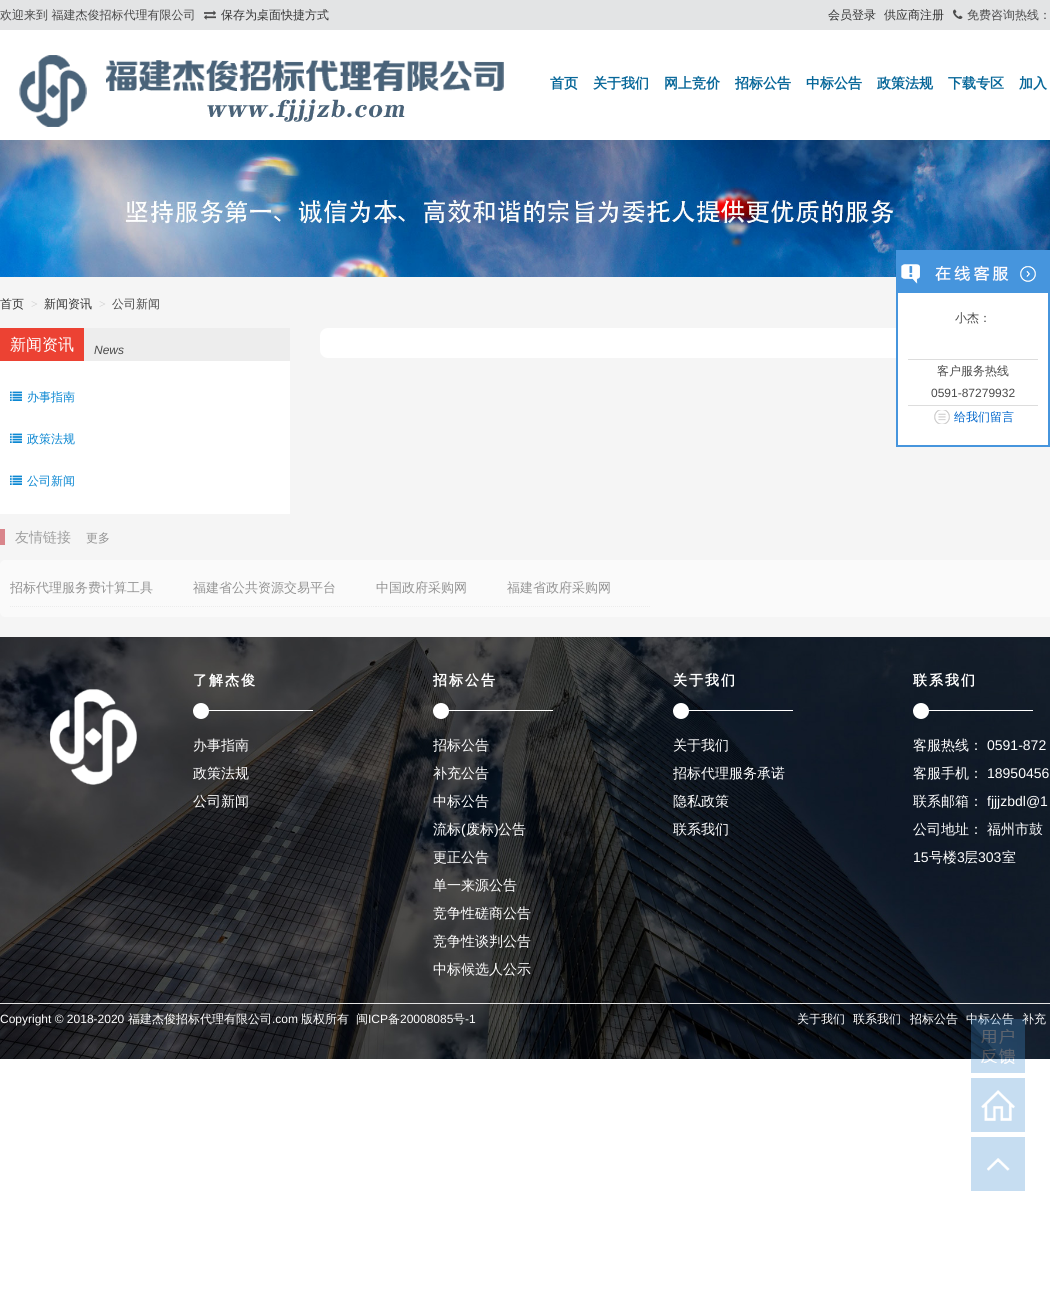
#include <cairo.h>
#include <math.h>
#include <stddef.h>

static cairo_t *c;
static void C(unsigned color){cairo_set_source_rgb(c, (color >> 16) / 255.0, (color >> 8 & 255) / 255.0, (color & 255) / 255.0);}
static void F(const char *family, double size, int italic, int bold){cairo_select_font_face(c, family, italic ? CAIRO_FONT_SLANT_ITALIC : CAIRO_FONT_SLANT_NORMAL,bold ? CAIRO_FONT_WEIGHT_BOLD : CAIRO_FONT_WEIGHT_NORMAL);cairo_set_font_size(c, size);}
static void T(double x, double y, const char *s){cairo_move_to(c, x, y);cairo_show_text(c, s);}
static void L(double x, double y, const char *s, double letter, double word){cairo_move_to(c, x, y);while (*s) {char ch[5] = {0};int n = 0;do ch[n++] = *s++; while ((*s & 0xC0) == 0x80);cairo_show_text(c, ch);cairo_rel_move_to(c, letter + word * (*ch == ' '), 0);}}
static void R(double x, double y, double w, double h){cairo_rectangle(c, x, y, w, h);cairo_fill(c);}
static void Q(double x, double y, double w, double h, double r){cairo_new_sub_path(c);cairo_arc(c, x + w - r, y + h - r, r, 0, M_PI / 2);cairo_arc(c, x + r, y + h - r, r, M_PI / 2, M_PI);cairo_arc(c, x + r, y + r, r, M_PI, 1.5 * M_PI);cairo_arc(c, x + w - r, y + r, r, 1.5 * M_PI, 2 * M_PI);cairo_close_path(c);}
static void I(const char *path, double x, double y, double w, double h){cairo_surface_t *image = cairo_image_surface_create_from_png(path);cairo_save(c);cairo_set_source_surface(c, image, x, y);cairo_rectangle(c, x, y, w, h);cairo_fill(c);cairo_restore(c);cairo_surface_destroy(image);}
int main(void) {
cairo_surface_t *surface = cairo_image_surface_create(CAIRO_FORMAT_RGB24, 1050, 1295);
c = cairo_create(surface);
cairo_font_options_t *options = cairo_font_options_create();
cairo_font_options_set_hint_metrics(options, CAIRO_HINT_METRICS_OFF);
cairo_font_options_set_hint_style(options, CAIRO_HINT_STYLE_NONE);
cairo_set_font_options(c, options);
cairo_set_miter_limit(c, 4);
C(0xffffff);
cairo_paint(c);
C(0xf5f5f5);
R(0,277,1050,360);
C(0xe3e4e5);
R(0,0,1050,30);
F("WenQuanYi Zen Hei Medium",12,0,0);
C(0x4a4a4a);
T(0,19,"欢迎来到 福建杰俊招标代理有限公司");
I("1.png",204,10,12,10);
C(0x333333);
T(221,19,"保存为桌面快捷方式");
T(828,19,"会员登录");
T(884,19,"供应商注册");
I("2.png",953,9,10,10);
C(0x4a4a4a);
T(967,19,"免费咨询热线：");
I("3.png",19,55,485,72);
F("WenQuanYi Zen Hei",14,0,1);
C(0x076799);
T(550,88,"首页");
T(593,88,"关于我们");
T(664,88,"网上竞价");
T(735,88,"招标公告");
T(806,88,"中标公告");
T(877,88,"政策法规");
T(948,88,"下载专区");
T(1019,88,"加入");
I("4.png",0,140,1050,137);
F("WenQuanYi Zen Hei Medium",12,0,0);
C(0x333333);
T(0,308,"首页");
F("Liberation Serif",12,0,0);
C(0xcccccc);
T(31,308,">");
F("WenQuanYi Zen Hei Medium",12,0,0);
C(0x333333);
T(44,308,"新闻资讯");
F("Liberation Serif",12,0,0);
C(0xcccccc);
T(99,308,">");
F("WenQuanYi Zen Hei Medium",12,0,0);
C(0x4a4a4a);
T(112,308,"公司新闻");
C(0xffffff);
R(0,361,290,153);
C(0xededed);
R(84,328,206,33);
C(0xec4233);
R(0,328,84,33);
F("WenQuanYi Zen Hei Medium",16,0,0);
C(0xffffff);
T(10,350,"新闻资讯");
F("Liberation Sans",12,1,0);
C(0x4a4a4a);
T(94,354,"News");
I("5.png",10,391,12,10);
F("WenQuanYi Zen Hei Medium",12,0,0);
C(0x0b87d2);
T(27,401,"办事指南");
I("5.png",10,433,12,10);
T(27,443,"政策法规");
I("5.png",10,475,12,10);
T(27,485,"公司新闻");
C(0xffffff);
Q(320,328,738,30,8);
cairo_fill(c);
I("6.png",896,250,154,46);
I("7.png",1020,266,16,16);
I("8.png",896,296,154,143);
C(0x4a4a4a);
T(955,322,"小杰：");
C(0xdddddd);
R(908,359,130,1);
R(908,405,130,1);
C(0x4a4a4a);
T(937,375,"客户服务热线");
F("Liberation Sans",12,0,0);
T(931,397,"0591-87279932");
I("9.png",934,410,16,14);
F("WenQuanYi Zen Hei Medium",12,0,0);
C(0x0066cc);
T(954,421,"给我们留言");
I("10.png",896,439,154,8);
F("WenQuanYi Zen Hei Medium",14,0,0);
C(0x9f9f9f);
T(15,542,"友情链接");
C(0xd9858b);
R(0,529,5,16);
F("WenQuanYi Zen Hei Medium",12,0,0);
C(0x939393);
T(86,542,"更多");
C(0xfafafa);
Q(0,560,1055,57,5);
cairo_fill(c);
cairo_new_path(c);
cairo_move_to(c,10,606.5);
cairo_line_to(c,193,606.5);
C(0xececec);
cairo_set_line_width(c,1);
cairo_set_dash(c,(double[]){1,1},2,0);
cairo_stroke(c);
F("WenQuanYi Zen Hei Medium",13,0,0);
C(0x939393);
T(10,592,"招标代理服务费计算工具");
cairo_new_path(c);
cairo_move_to(c,193,606.5);
cairo_line_to(c,376,606.5);
C(0xececec);
cairo_stroke(c);
C(0x939393);
T(193,592,"福建省公共资源交易平台");
cairo_new_path(c);
cairo_move_to(c,376,606.5);
cairo_line_to(c,507,606.5);
C(0xececec);
cairo_stroke(c);
C(0x939393);
T(376,592,"中国政府采购网");
cairo_new_path(c);
cairo_move_to(c,507,606.5);
cairo_line_to(c,651,606.5);
C(0xececec);
cairo_stroke(c);
C(0x939393);
T(507,592,"福建省政府采购网");
I("11.png",0,637,1050,422);
I("12.png",50,689,87,96);
F("WenQuanYi Zen Hei",14,0,1);
C(0xffffff);
L(193,685,"了解杰俊",2,0);
R(193,710,120,1);
cairo_new_path(c);
cairo_arc(c,201,711,8,0,2 * M_PI);
cairo_fill(c);
F("WenQuanYi Zen Hei Medium",14,0,0);
T(193,750,"办事指南");
T(193,778,"政策法规");
T(193,806,"公司新闻");
F("WenQuanYi Zen Hei",14,0,1);
L(433,685,"招标公告",2,0);
R(433,710,120,1);
cairo_new_path(c);
cairo_arc(c,441,711,8,0,2 * M_PI);
cairo_fill(c);
F("WenQuanYi Zen Hei Medium",14,0,0);
T(433,750,"招标公告");
T(433,778,"补充公告");
T(433,806,"中标公告");
T(433,834,"流标");
F("Liberation Sans",14,0,0);
T(461,834,"(");
F("WenQuanYi Zen Hei Medium",14,0,0);
T(466,834,"废标");
F("Liberation Sans",14,0,0);
T(494,834,")");
F("WenQuanYi Zen Hei Medium",14,0,0);
T(498,834,"公告");
T(433,862,"更正公告");
T(433,890,"单一来源公告");
T(433,918,"竞争性磋商公告");
T(433,946,"竞争性谈判公告");
T(433,974,"中标候选人公示");
F("WenQuanYi Zen Hei",14,0,1);
L(673,685,"关于我们",2,0);
R(673,710,120,1);
cairo_new_path(c);
cairo_arc(c,681,711,8,0,2 * M_PI);
cairo_fill(c);
F("WenQuanYi Zen Hei Medium",14,0,0);
T(673,750,"关于我们");
T(673,778,"招标代理服务承诺");
T(673,806,"隐私政策");
T(673,834,"联系我们");
F("WenQuanYi Zen Hei",14,0,1);
L(913,685,"联系我们",2,0);
R(913,710,120,1);
cairo_new_path(c);
cairo_arc(c,921,711,8,0,2 * M_PI);
cairo_fill(c);
F("WenQuanYi Zen Hei Medium",14,0,0);
T(913,750,"客服热线：");
F("Liberation Sans",14,0,0);
T(987,750,"0591-872");
F("WenQuanYi Zen Hei Medium",14,0,0);
T(913,778,"客服手机：");
F("Liberation Sans",14,0,0);
T(987,778,"18950456");
F("WenQuanYi Zen Hei Medium",14,0,0);
T(913,806,"联系邮箱：");
F("Liberation Sans",14,0,0);
T(987,806,"fjjjzbdl@1");
F("WenQuanYi Zen Hei Medium",14,0,0);
T(913,834,"公司地址：");
T(987,834,"福州市鼓");
F("Liberation Sans",14,0,0);
T(913,862,"15");
F("WenQuanYi Zen Hei Medium",14,0,0);
T(929,862,"号楼");
F("Liberation Sans",14,0,0);
T(957,862,"3");
F("WenQuanYi Zen Hei Medium",14,0,0);
T(964,862,"层");
F("Liberation Sans",14,0,0);
T(978,862,"303");
F("WenQuanYi Zen Hei Medium",14,0,0);
T(1002,862,"室");
C(0xe3e3e3);
R(0,1003,1050,1);
F("Liberation Sans",12,0,0);
C(0xffffff);
T(0,1023,"Copyright © 2018-2020");
F("WenQuanYi Zen Hei Medium",12,0,0);
T(128,1023,"福建杰俊招标代理有限公司");
F("Liberation Sans",12,0,0);
T(272,1023,".com");
F("WenQuanYi Zen Hei Medium",12,0,0);
T(301,1023,"版权所有");
T(356,1023,"闽");
F("Liberation Sans",12,0,0);
T(368,1023,"ICP");
F("WenQuanYi Zen Hei Medium",12,0,0);
T(388,1023,"备");
F("Liberation Sans",12,0,0);
T(400,1023,"20008085");
F("WenQuanYi Zen Hei Medium",12,0,0);
T(453,1023,"号");
F("Liberation Sans",12,0,0);
T(465,1023,"-1");
F("WenQuanYi Zen Hei Medium",12,0,0);
T(797,1023,"关于我们");
T(853,1023,"联系我们");
T(910,1023,"招标公告");
T(966,1023,"中标公告");
T(1022,1023,"补充");
I("13.png",971,1019,54,54);
I("14.png",971,1078,54,54);
I("15.png",971,1137,54,54);
cairo_surface_write_to_png(surface, "o.png");
cairo_font_options_destroy(options);
cairo_destroy(c);
cairo_surface_destroy(surface);
return 0;
}
